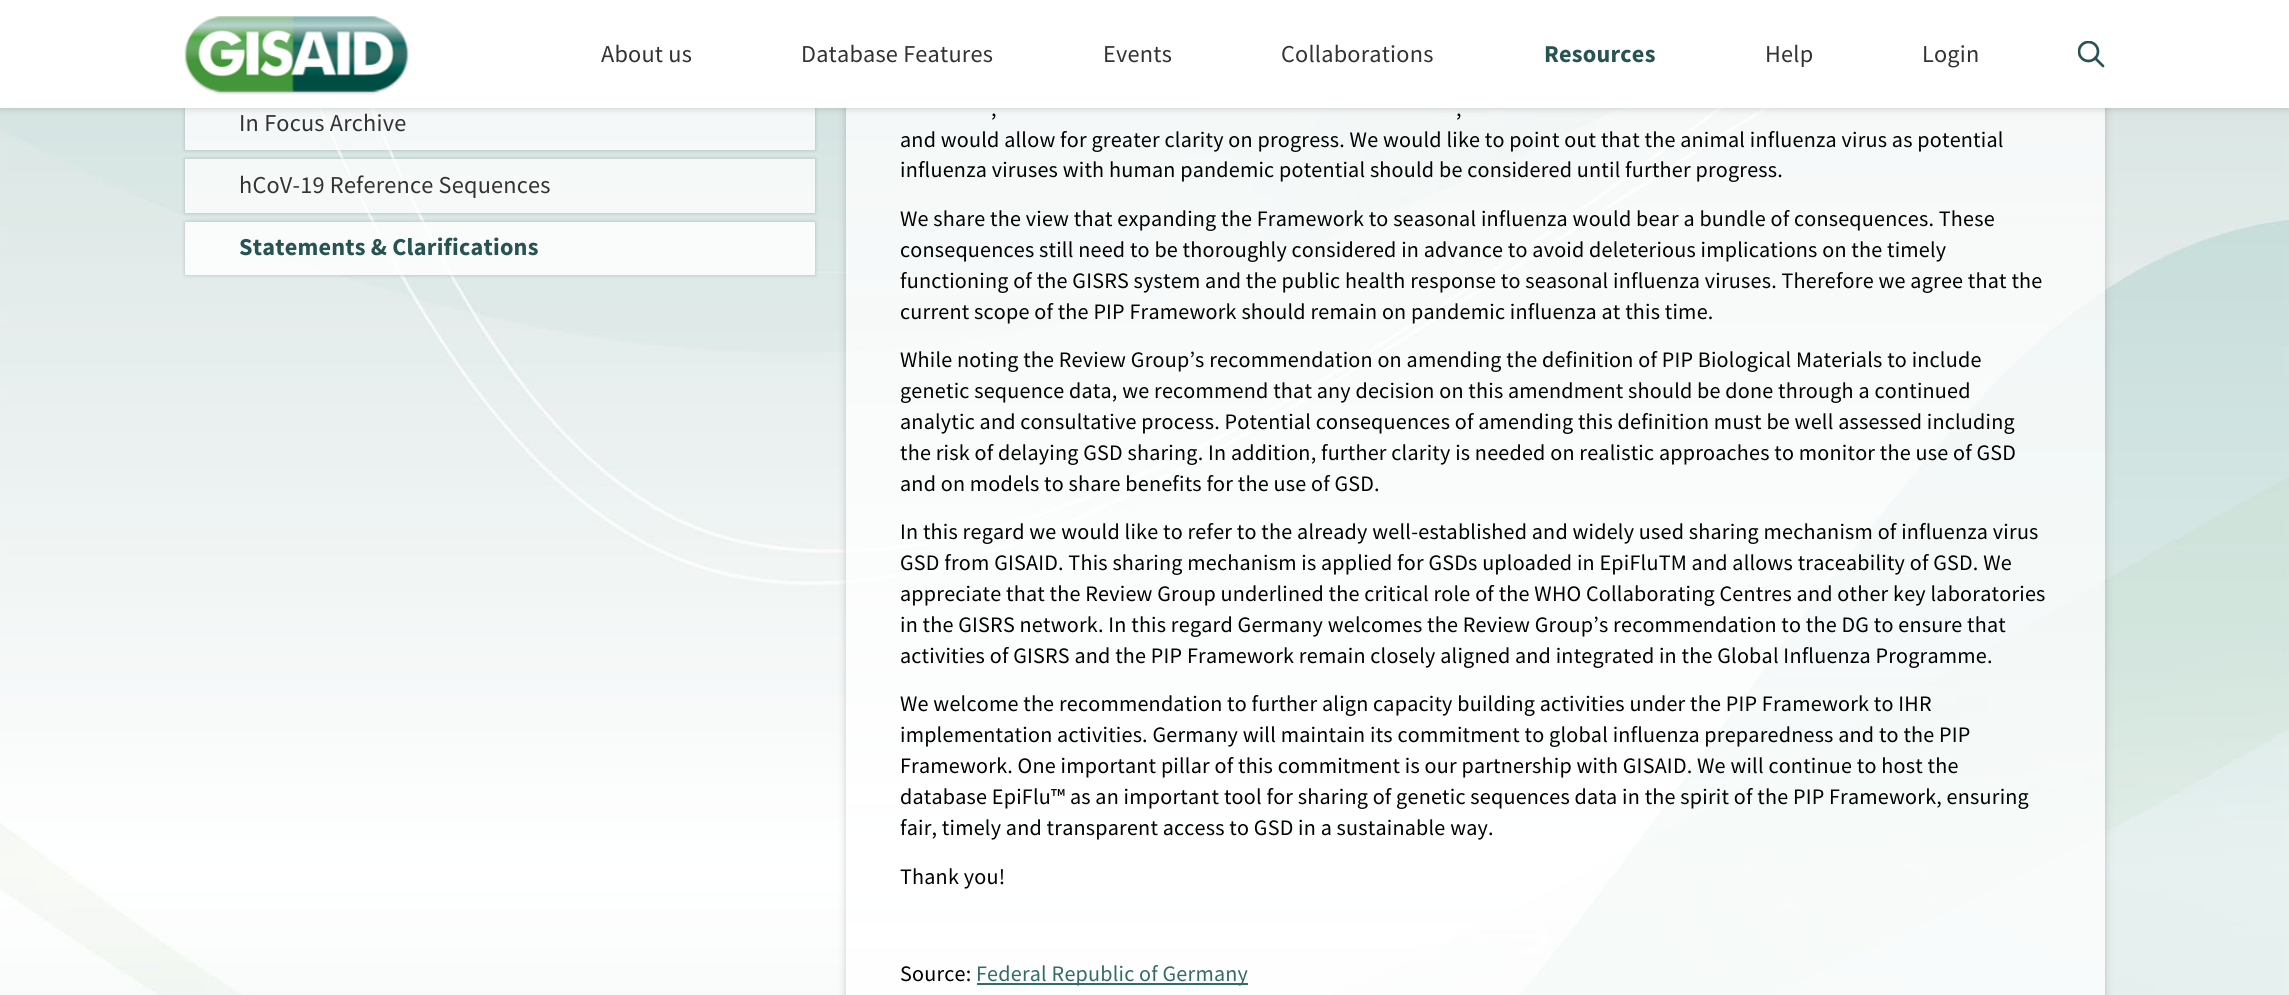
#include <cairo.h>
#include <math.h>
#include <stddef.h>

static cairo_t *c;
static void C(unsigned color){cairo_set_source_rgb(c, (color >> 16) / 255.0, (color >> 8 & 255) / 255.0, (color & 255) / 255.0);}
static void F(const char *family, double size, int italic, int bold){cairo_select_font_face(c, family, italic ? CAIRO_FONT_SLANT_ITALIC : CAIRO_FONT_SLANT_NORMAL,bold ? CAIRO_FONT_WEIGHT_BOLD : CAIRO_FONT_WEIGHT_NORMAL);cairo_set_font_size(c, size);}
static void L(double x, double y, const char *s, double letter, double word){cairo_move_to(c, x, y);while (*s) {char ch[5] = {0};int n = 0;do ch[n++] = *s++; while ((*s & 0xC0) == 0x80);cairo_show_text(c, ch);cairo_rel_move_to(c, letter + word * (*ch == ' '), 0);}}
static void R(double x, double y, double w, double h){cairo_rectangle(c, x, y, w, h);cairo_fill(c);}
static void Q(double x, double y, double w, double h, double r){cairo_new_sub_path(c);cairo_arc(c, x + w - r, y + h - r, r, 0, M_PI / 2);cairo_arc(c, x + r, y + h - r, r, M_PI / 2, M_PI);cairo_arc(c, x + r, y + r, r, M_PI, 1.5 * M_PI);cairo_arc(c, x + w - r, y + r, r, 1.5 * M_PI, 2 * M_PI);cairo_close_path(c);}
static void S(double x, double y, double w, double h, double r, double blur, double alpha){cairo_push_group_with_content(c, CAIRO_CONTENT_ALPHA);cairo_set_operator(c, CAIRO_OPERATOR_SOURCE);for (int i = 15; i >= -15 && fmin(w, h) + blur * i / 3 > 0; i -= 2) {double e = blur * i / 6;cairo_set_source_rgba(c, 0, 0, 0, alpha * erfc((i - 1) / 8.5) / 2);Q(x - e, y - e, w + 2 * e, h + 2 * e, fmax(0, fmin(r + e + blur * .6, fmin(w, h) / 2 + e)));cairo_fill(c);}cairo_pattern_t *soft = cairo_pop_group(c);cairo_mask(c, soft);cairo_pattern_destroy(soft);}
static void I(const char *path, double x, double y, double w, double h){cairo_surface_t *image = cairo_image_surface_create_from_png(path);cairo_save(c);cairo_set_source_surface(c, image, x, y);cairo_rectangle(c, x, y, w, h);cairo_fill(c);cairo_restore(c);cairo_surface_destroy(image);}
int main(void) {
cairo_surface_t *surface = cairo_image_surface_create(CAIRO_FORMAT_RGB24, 2289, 995);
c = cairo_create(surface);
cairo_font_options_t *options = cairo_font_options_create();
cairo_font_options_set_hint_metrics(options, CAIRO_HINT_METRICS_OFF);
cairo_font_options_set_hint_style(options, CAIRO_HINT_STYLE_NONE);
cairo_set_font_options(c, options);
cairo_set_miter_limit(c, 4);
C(0xffffff);
cairo_paint(c);
I("1.png",0,108,2289,887);
cairo_save(c);
cairo_set_fill_rule(c,CAIRO_FILL_RULE_EVEN_ODD);
cairo_new_path(c);
cairo_move_to(c,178,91);
cairo_line_to(c,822,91);
cairo_line_to(c,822,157);
cairo_line_to(c,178,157);
cairo_close_path(c);
cairo_move_to(c,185,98);
cairo_line_to(c,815,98);
cairo_line_to(c,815,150);
cairo_line_to(c,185,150);
cairo_close_path(c);
cairo_clip(c);
C(0x000000);
S(185,98,630,52,0,2,.2);
cairo_restore(c);
cairo_set_source_rgba(c,1,1,1,0.75);
R(185,108,630,42);
cairo_save(c);
cairo_set_fill_rule(c,CAIRO_FILL_RULE_EVEN_ODD);
cairo_new_path(c);
cairo_move_to(c,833,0);
cairo_line_to(c,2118,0);
cairo_line_to(c,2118,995);
cairo_line_to(c,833,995);
cairo_close_path(c);
cairo_move_to(c,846,-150);
cairo_line_to(c,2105,-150);
cairo_line_to(c,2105,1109);
cairo_line_to(c,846,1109);
cairo_close_path(c);
cairo_clip(c);
C(0x000000);
S(846,-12,1259,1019,0,4,.2);
cairo_restore(c);
R(846,108,1259,887);
C(0x000000);
S(0,0,2289,108,0,4,.2);
C(0xffffff);
R(0,0,2289,108);
I("2.png",184,16,225,79);
F("Source Sans Pro",24.25,0,0);
C(0x333333);
L(601,62,"About us",.22,0);
L(801,62,"Database Features",.22,0);
L(1103,62,"Events",.22,0);
L(1281,62,"Collaborations",.22,0);
F("Source Sans Pro",24.25,0,1);
C(0x275451);
L(1544,62,"Resources",.22,0);
F("Source Sans Pro",24.25,0,0);
C(0x333333);
L(1765,62,"Help",.22,0);
L(1922,62,"Login",.22,0);
cairo_save(c);
cairo_rectangle(c,2078,41,27,27);
cairo_clip(c);
cairo_arc(c,2088.5,51.5,9.5,0,2 * M_PI);
C(0x275451);
cairo_set_line_width(c,2.7);
cairo_stroke(c);
cairo_restore(c);
cairo_new_path(c);
cairo_move_to(c,2095,58);
cairo_line_to(c,2103,66);
C(0x275451);
cairo_set_line_width(c,2.7);
cairo_set_line_cap(c,CAIRO_LINE_CAP_ROUND);
cairo_stroke(c);
C(0x333333);
L(239,131,"In Focus Archive",.22,0);
cairo_save(c);
cairo_set_fill_rule(c,CAIRO_FILL_RULE_EVEN_ODD);
cairo_new_path(c);
cairo_move_to(c,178,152);
cairo_line_to(c,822,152);
cairo_line_to(c,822,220);
cairo_line_to(c,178,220);
cairo_close_path(c);
cairo_move_to(c,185,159);
cairo_line_to(c,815,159);
cairo_line_to(c,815,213);
cairo_line_to(c,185,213);
cairo_close_path(c);
cairo_clip(c);
C(0x000000);
S(185,159,630,54,0,2,.2);
cairo_restore(c);
cairo_set_source_rgba(c,1,1,1,0.75);
R(185,159,630,54);
C(0x333333);
L(239,193,"hCoV-19 Reference Sequences",.22,0);
cairo_save(c);
cairo_set_fill_rule(c,CAIRO_FILL_RULE_EVEN_ODD);
cairo_new_path(c);
cairo_move_to(c,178,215);
cairo_line_to(c,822,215);
cairo_line_to(c,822,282);
cairo_line_to(c,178,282);
cairo_close_path(c);
cairo_move_to(c,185,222);
cairo_line_to(c,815,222);
cairo_line_to(c,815,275);
cairo_line_to(c,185,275);
cairo_close_path(c);
cairo_clip(c);
C(0x000000);
S(185,222,630,53,0,2,.2);
cairo_restore(c);
cairo_set_source_rgba(c,1,1,1,0.85);
R(185,222,630,53);
F("Source Sans Pro",24.25,0,1);
C(0x275451);
L(239,255,"Statements & Clarifications",.22,0);
F("Source Sans Pro",22.08,0,0);
C(0x000000);
L(991,116,",",.22,0);
L(1456,116,",",.22,0);
L(900,147,"and would allow for greater clarity on progress. We would like to point out that the animal influenza virus as potential",.22,0);
L(900,177,"influenza viruses with human pandemic potential should be considered until further progress.",.22,0);
L(900,226,"We share the view that expanding the Framework to seasonal influenza would bear a bundle of consequences. These",.22,0);
L(900,257,"consequences still need to be thoroughly considered in advance to avoid deleterious implications on the timely",.22,0);
L(900,288,"functioning of the GISRS system and the public health response to seasonal influenza viruses. Therefore we agree that the",.22,0);
L(900,319,"current scope of the PIP Framework should remain on pandemic influenza at this time.",.22,0);
L(900,367,"While noting the Review Group’s recommendation on amending the definition of PIP Biological Materials to include",.22,0);
L(900,398,"genetic sequence data, we recommend that any decision on this amendment should be done through a continued",.22,0);
L(900,429,"analytic and consultative process. Potential consequences of amending this definition must be well assessed including",.22,0);
L(900,460,"the risk of delaying GSD sharing. In addition, further clarity is needed on realistic approaches to monitor the use of GSD",.22,0);
L(900,491,"and on models to share benefits for the use of GSD.",.22,0);
L(900,539,"In this regard we would like to refer to the already well-established and widely used sharing mechanism of influenza virus",.22,0);
L(900,570,"GSD from GISAID. This sharing mechanism is applied for GSDs uploaded in EpiFluTM and allows traceability of GSD. We",.22,0);
L(900,601,"appreciate that the Review Group underlined the critical role of the WHO Collaborating Centres and other key laboratories",.22,0);
L(900,632,"in the GISRS network. In this regard Germany welcomes the Review Group’s recommendation to the DG to ensure that",.22,0);
L(900,663,"activities of GISRS and the PIP Framework remain closely aligned and integrated in the Global Influenza Programme.",.22,0);
L(900,711,"We welcome the recommendation to further align capacity building activities under the PIP Framework to IHR",.22,0);
L(900,742,"implementation activities. Germany will maintain its commitment to global influenza preparedness and to the PIP",.22,0);
L(900,773,"Framework. One important pillar of this commitment is our partnership with GISAID. We will continue to host the",.22,0);
L(900,804,"database EpiFlu™ as an important tool for sharing of genetic sequences data in the spirit of the PIP Framework, ensuring",.22,0);
L(900,835,"fair, timely and transparent access to GSD in a sustainable way.",.22,0);
L(900,884,"Thank you!",.22,0);
L(900,981,"Source:",.22,0);
C(0x326c69);
R(977,983,271,2);
L(976,981,"Federal Republic of Germany",.22,0);
cairo_surface_write_to_png(surface, "o.png");
cairo_font_options_destroy(options);
cairo_destroy(c);
cairo_surface_destroy(surface);
return 0;
}
